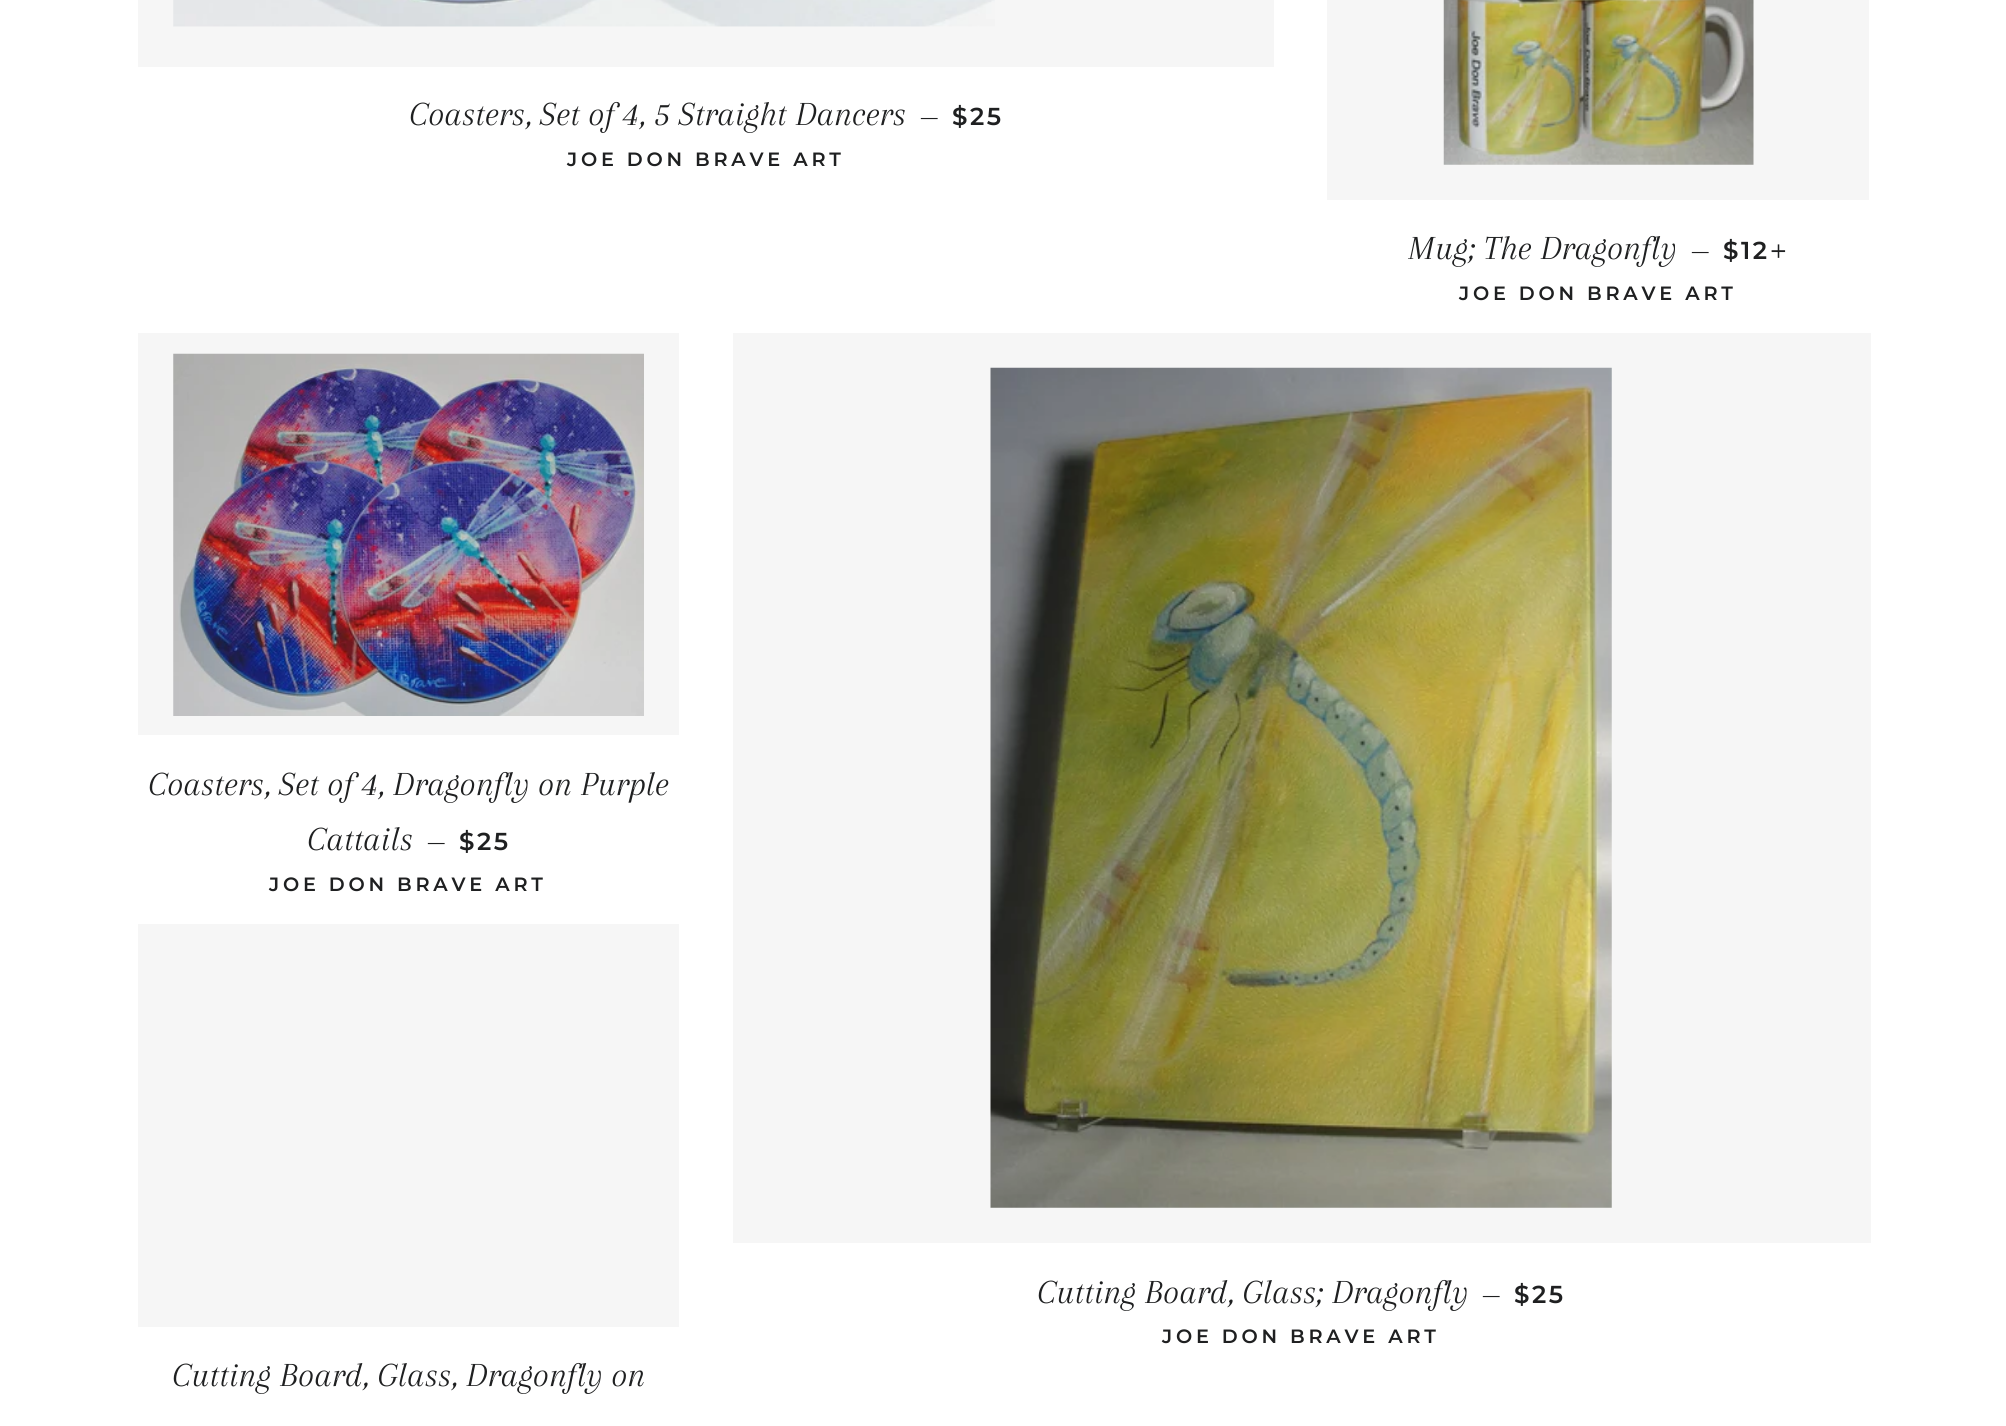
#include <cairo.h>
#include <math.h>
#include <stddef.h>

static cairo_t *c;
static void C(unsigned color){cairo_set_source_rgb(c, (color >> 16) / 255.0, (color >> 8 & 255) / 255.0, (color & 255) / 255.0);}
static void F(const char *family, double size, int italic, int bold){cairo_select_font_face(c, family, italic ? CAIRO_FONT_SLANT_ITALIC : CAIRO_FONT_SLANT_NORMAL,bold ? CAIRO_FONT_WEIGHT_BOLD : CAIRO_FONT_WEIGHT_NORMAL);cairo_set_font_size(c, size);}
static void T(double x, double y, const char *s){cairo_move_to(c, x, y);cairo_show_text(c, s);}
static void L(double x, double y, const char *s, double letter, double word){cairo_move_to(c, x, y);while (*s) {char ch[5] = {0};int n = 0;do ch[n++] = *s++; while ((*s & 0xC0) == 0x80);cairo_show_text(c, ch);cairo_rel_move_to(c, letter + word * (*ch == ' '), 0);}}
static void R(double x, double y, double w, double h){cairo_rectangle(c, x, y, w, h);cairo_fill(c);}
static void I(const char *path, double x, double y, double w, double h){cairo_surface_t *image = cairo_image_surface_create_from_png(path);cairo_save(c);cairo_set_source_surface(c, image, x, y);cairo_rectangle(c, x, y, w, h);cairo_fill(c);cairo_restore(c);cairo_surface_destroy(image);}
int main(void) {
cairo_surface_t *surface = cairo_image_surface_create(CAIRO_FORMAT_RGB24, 2006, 1426);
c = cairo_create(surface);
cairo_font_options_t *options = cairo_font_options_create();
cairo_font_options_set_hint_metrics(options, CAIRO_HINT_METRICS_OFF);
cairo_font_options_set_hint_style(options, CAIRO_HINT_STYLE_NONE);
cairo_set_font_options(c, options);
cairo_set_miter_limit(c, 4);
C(0xffffff);
cairo_paint(c);
C(0xf6f6f6);
R(138,0,1136,67);
I("1.png",173,0,822,27);
F("Arapey",35,1,0);
C(0x1f2021);
T(409,125,"Coasters, Set of 4, 5 Straight Dancers");
F("Arapey",28,0,0);
T(920,125,"—");
F("Montserrat SemiBold",24.5,0,0);
L(952,125,"$25",2.5,0);
F("Montserrat SemiBold",19.25,0,0);
L(567,166,"JOE DON BRAVE ART",3.8,0);
C(0xf6f6f6);
R(1327,0,542,200);
I("2.png",1443,0,311,165);
F("Arapey",35,1,0);
C(0x1f2021);
T(1408,259,"Mug; The Dragonfly");
F("Arapey",28,0,0);
T(1691,259,"—");
F("Montserrat SemiBold",24.5,0,0);
L(1723,259,"$12",2.5,0);
I("3.png",1771,244,15,14);
F("Montserrat SemiBold",19.25,0,0);
L(1459,300,"JOE DON BRAVE ART",3.8,0);
C(0xf6f6f6);
R(138,333,541,402);
I("4.png",173,353,471,363);
F("Arapey",35,1,0);
C(0x1f2021);
T(148,795,"Coasters, Set of 4, Dragonfly on Purple");
T(307,850,"Cattails");
F("Arapey",28,0,0);
T(427,850,"—");
F("Montserrat SemiBold",24.5,0,0);
L(459,850,"$25",2.5,0);
F("Montserrat SemiBold",19.25,0,0);
L(269,891,"JOE DON BRAVE ART",3.8,0);
C(0xf6f6f6);
R(138,924,541,403);
F("Arapey",35,1,0);
C(0x1f2021);
T(172,1386,"Cutting Board, Glass, Dragonfly on");
C(0xf6f6f6);
R(733,333,1138,910);
I("5.png",990,367,622,841);
C(0x1f2021);
T(1037,1303,"Cutting Board, Glass; Dragonfly");
F("Arapey",28,0,0);
T(1482,1303,"—");
F("Montserrat SemiBold",24.5,0,0);
L(1514,1303,"$25",2.5,0);
F("Montserrat SemiBold",19.25,0,0);
L(1162,1343,"JOE DON BRAVE ART",3.8,0);
cairo_surface_write_to_png(surface, "o.png");
cairo_font_options_destroy(options);
cairo_destroy(c);
cairo_surface_destroy(surface);
return 0;
}
